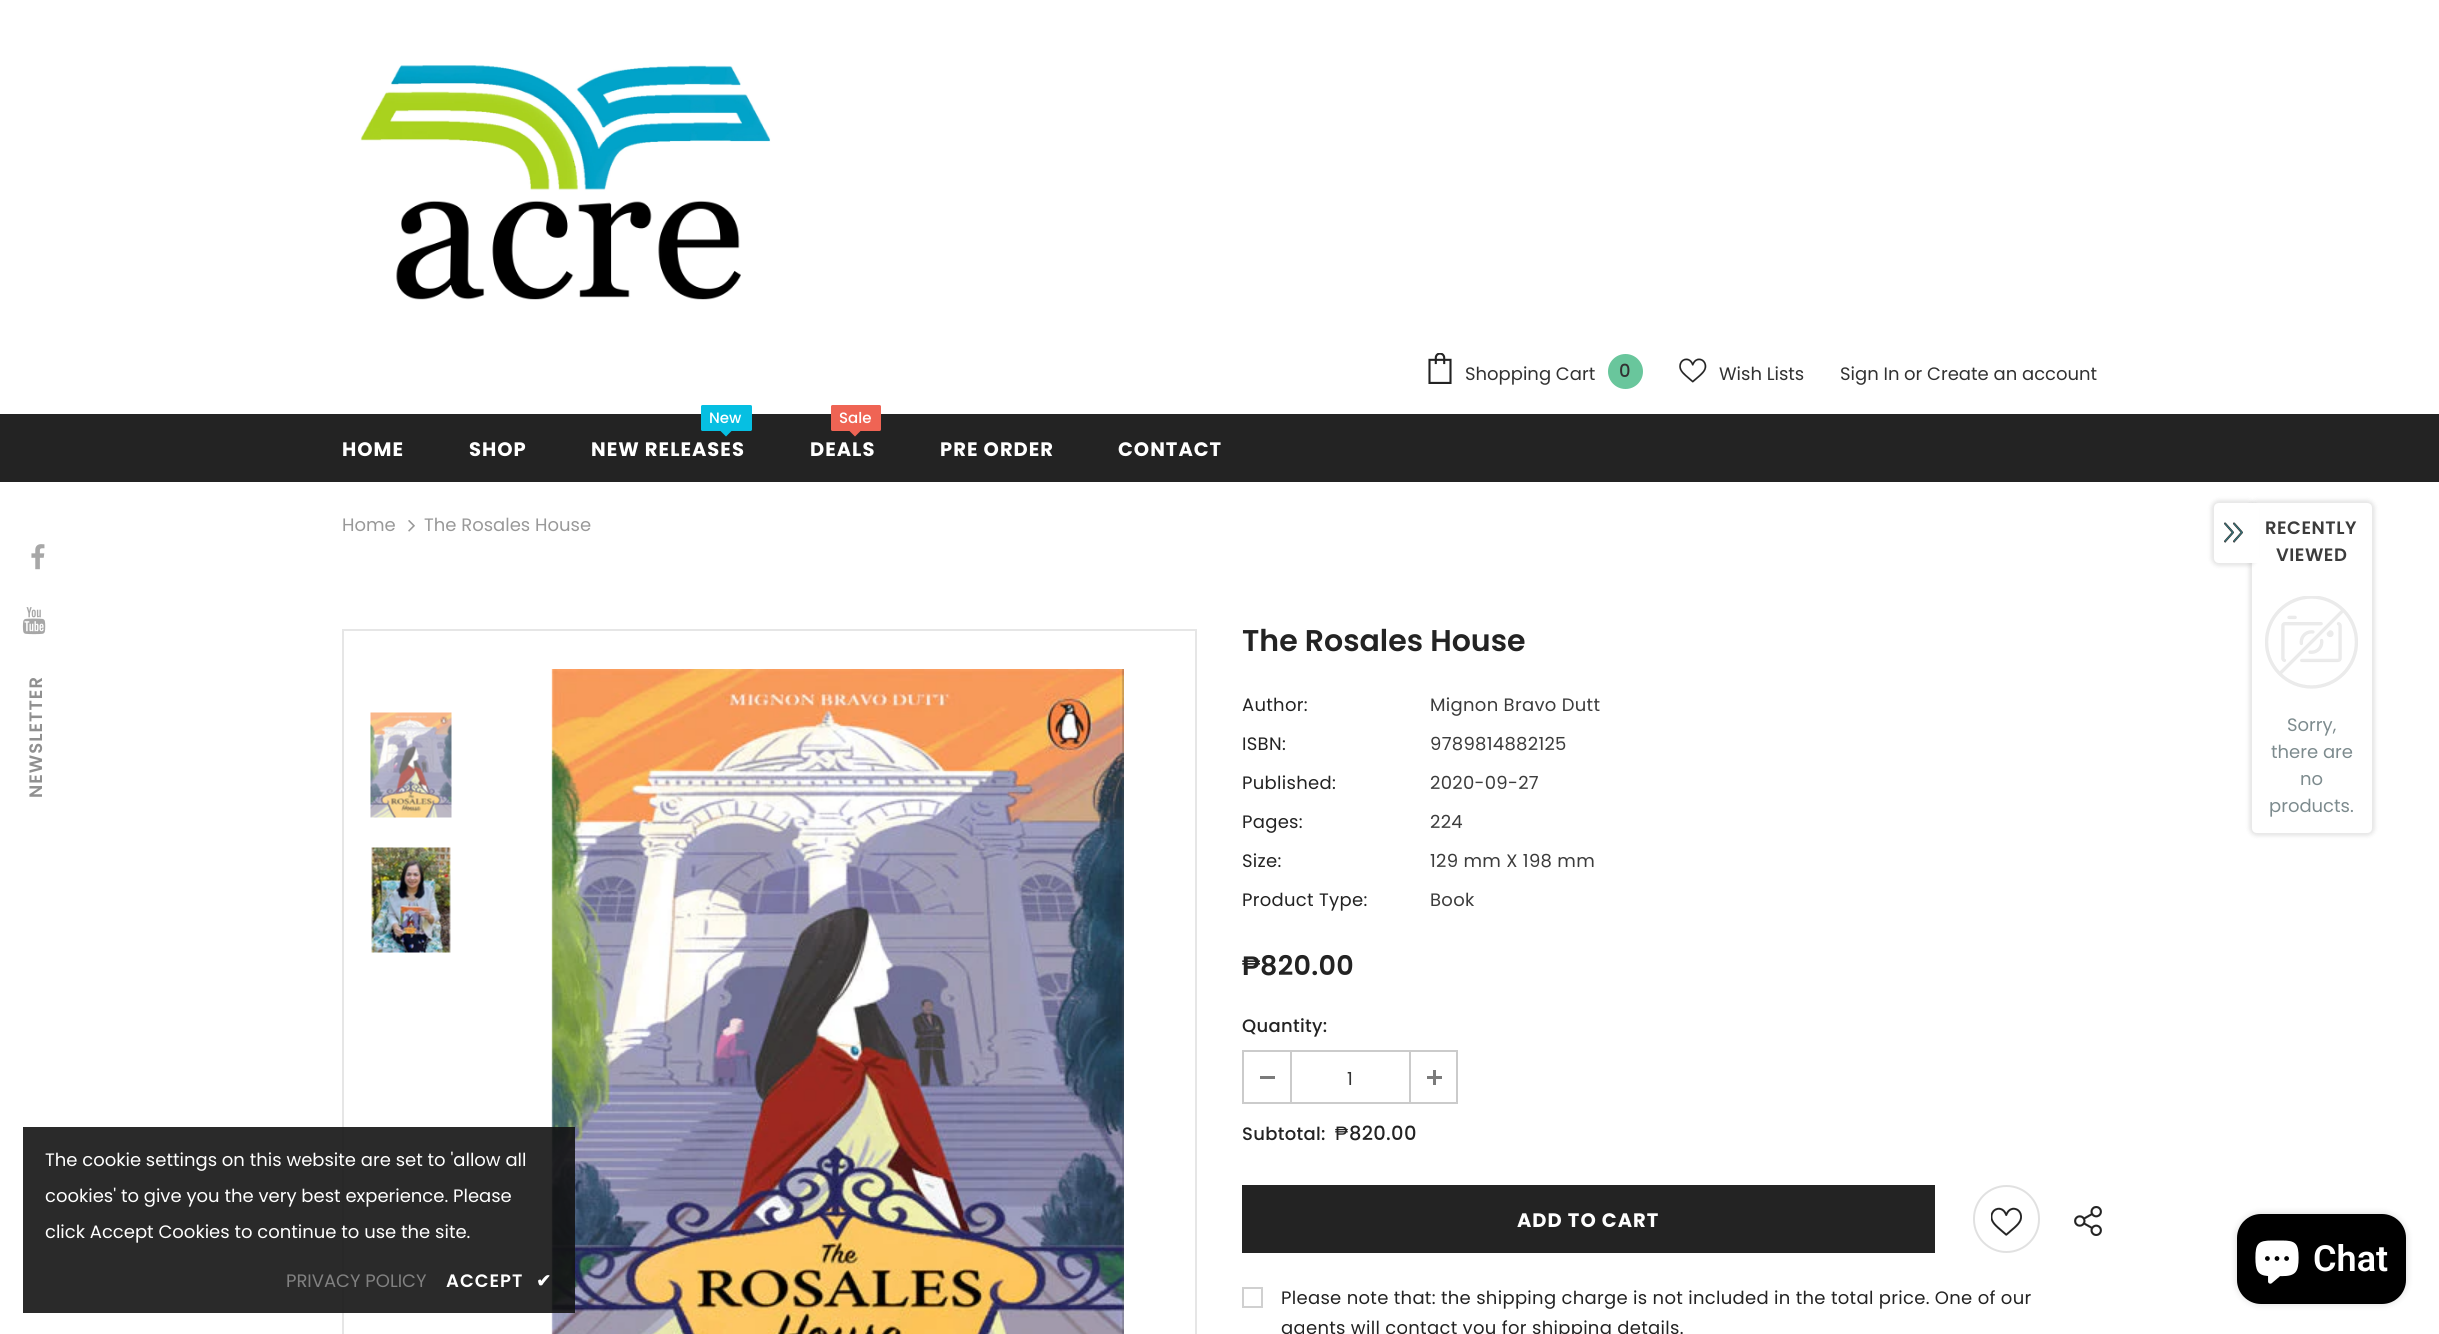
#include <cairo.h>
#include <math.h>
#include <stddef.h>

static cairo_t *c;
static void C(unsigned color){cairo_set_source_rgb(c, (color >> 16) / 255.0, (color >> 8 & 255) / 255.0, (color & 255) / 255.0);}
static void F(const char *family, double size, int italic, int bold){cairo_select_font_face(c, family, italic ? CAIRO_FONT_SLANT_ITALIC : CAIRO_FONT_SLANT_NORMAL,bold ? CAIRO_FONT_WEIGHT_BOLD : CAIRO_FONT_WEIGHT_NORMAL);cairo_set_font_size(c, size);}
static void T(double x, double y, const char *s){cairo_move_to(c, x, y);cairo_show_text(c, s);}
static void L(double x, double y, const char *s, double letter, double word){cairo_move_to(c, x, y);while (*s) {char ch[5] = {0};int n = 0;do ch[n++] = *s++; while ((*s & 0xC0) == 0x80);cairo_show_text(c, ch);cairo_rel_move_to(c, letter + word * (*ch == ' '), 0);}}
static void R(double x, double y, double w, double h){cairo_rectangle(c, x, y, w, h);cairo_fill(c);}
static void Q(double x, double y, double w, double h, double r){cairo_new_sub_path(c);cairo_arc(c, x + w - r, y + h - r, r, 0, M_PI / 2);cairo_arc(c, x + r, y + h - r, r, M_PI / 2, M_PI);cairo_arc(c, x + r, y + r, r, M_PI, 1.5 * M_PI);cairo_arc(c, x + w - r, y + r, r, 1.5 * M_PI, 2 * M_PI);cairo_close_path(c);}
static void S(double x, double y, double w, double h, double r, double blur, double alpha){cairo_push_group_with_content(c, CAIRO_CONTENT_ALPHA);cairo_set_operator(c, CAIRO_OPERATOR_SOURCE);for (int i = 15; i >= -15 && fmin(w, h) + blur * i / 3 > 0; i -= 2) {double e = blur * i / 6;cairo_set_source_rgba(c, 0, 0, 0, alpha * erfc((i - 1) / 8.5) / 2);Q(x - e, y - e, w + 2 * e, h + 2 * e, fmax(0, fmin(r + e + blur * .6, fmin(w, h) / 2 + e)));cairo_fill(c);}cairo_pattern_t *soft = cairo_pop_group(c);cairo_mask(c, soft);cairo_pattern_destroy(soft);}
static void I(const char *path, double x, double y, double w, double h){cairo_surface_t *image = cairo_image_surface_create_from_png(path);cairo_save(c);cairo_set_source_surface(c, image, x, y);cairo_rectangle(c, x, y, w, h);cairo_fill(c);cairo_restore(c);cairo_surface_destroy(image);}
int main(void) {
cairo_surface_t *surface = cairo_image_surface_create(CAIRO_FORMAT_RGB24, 2439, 1334);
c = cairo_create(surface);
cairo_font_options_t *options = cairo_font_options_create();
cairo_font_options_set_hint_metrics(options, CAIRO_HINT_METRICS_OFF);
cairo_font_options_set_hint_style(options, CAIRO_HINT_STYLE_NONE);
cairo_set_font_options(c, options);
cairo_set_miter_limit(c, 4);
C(0xffffff);
cairo_paint(c);
I("1.png",360,65,411,235);
I("2.png",1428,353,24,31);
F("Poppins",18,0,0);
C(0x323232);
T(1465,380,"Shopping Cart");
C(0x69c69c);
cairo_new_path(c);
cairo_arc(c,1625.5,371.5,17.5,0,2 * M_PI);
cairo_fill(c);
F("Poppins Medium",18,0,0);
C(0x323232);
T(1619,377,"0");
I("3.png",1679,358,28,25);
F("Poppins",18,0,0);
T(1719,380,"Wish Lists");
T(1840,380,"Sign In");
T(1904,380,"or Create an account");
C(0x232323);
R(0,414,2439,68);
F("Poppins",19.5,0,1);
C(0xffffff);
L(342,456,"HOME",1,0);
L(469,456,"SHOP",1,0);
C(0x06bfe2);
Q(701,405,51,26,1.5);
cairo_fill(c);
F("Poppins Medium",15,0,0);
C(0xffffff);
T(709,423,"New");
C(0x06bfe2);
cairo_new_path(c);
cairo_move_to(c,718.5,429);
cairo_line_to(c,733.5,429);
cairo_line_to(c,726,436.5);
cairo_close_path(c);
cairo_fill(c);
F("Poppins",19.5,0,1);
C(0xffffff);
L(591,456,"NEW RELEASES",1,0);
C(0xef6454);
Q(831,405,50,26,1.5);
cairo_fill(c);
F("Poppins Medium",15,0,0);
C(0xffffff);
T(839,423,"Sale");
C(0xef6454);
cairo_new_path(c);
cairo_move_to(c,847.5,429);
cairo_line_to(c,862.5,429);
cairo_line_to(c,855,436.5);
cairo_close_path(c);
cairo_fill(c);
F("Poppins",19.5,0,1);
C(0xffffff);
L(810,456,"DEALS",1,0);
L(940,456,"PRE ORDER",1,0);
L(1118,456,"CONTACT",1,0);
I("4.png",31,544,14,26);
I("5.png",22,607,24,28);
F("Poppins SemiBold",18,0,0);
C(0x909090);
cairo_save(c);
cairo_translate(c,42,798);
cairo_rotate(c,-90 * M_PI / 180);
L(0,0,"NEWSLETTER",1,0);
cairo_restore(c);
cairo_rectangle(c,343,630,853,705);
C(0xe6e6e6);
cairo_stroke(c);
I("9.png",551,669,573,665);
cairo_set_source_rgba(c,0.078,0.078,0.078,0.9);
R(23,1127,552,186);
F("Poppins",18,0,0);
C(0xffffff);
T(45,1166,"The cookie settings on this website are set to 'allow all");
T(45,1202,"cookies' to give you the very best experience. Please");
T(45,1238,"click Accept Cookies to continue to use the site.");
C(0x818181);
T(286,1287,"PRIVACY POLICY");
F("Poppins SemiBold",18,0,0);
C(0xffffff);
L(446,1287,"ACCEPT",1,0);
F("DejaVu Sans",18,0,1);
L(536,1287,"✔",1,0);
F("Poppins",18,0,0);
C(0x999999);
T(342,531,"Home");
I("6.png",408,520,7,12);
T(424,531,"The Rosales House");
I("7.png",370,712,82,106);
I("8.png",371,847,80,106);
F("Poppins SemiBold",30,0,0);
C(0x232323);
T(1242,651,"The Rosales House");
F("Poppins",18,0,0);
L(1242,711,"Author:",.3,0);
C(0x3c3c3c);
L(1430,711,"Mignon Bravo Dutt",.3,0);
C(0x232323);
L(1242,750,"ISBN:",.3,0);
C(0x3c3c3c);
L(1430,750,"9789814882125",.3,0);
C(0x232323);
L(1242,789,"Published:",.3,0);
C(0x3c3c3c);
L(1430,789,"2020-09-27",.3,0);
C(0x232323);
L(1242,828,"Pages:",.3,0);
C(0x3c3c3c);
L(1430,828,"224",.3,0);
C(0x232323);
L(1242,867,"Size:",.3,0);
C(0x3c3c3c);
L(1430,867,"129 mm X 198 mm",.3,0);
C(0x232323);
L(1242,906,"Product Type:",.3,0);
C(0x3c3c3c);
L(1430,906,"Book",.3,0);
F("Liberation Sans",27,0,1);
C(0x232323);
L(1242,975,"₱",.3,0);
F("Poppins SemiBold",27,0,0);
L(1260,975,"820.00",.3,0);
F("Poppins Medium",18,0,0);
L(1242,1032,"Quantity:",.3,0);
cairo_rectangle(c,1243,1051,214,52);
C(0xcbcbcb);
cairo_stroke(c);
R(1290,1052,2,51);
C(0x7b7b7b);
R(1260,1076,15,3);
F("Poppins",18,0,0);
C(0x323232);
T(1347,1085,"1");
C(0xcbcbcb);
R(1409,1052,2,51);
C(0x7b7b7b);
R(1427,1076,15,3);
R(1433,1070,3,15);
F("Poppins Medium",18,0,0);
C(0x232323);
L(1242,1140,"Subtotal:",.3,0);
F("Liberation Sans",19.5,0,0);
L(1335,1140,"₱",.3,0);
F("Poppins Medium",19.5,0,0);
L(1349,1140,"820.00",.3,0);
R(1242,1185,693,68);
F("Poppins",19.5,0,1);
C(0xffffff);
L(1517,1227,"ADD TO CART",1,0);
Q(1974,1186,65,66,32.5);
C(0xe1e1e1);
cairo_stroke(c);
I("10.png",1991,1207,31,29);
I("11.png",2074,1206,28,30);
cairo_rectangle(c,1243,1288,19,19);
C(0xd0d0d0);
cairo_stroke(c);
F("Poppins",18,0,0);
C(0x232323);
L(1281,1304,"Please note that: the shipping charge is not included in the total price. One of our",.3,0);
L(1281,1334,"agents will contact you for shipping details.",.3,0);
C(0x000000);
S(2249,500,126,336,8,2,.1);
C(0xffffff);
cairo_new_path(c);
cairo_move_to(c,2252,503);
cairo_line_to(c,2367,503);
cairo_curve_to(c,2370,503,2372,505,2372,508);
cairo_line_to(c,2372,828);
cairo_curve_to(c,2372,831,2370,833,2367,833);
cairo_line_to(c,2257,833);
cairo_curve_to(c,2254,833,2252,831,2252,828);
cairo_close_path(c);
cairo_fill(c);
C(0x000000);
S(2211,500,45,66,8,2,.1);
C(0xffffff);
cairo_new_path(c);
cairo_move_to(c,2219,503);
cairo_line_to(c,2253,503);
cairo_line_to(c,2253,563);
cairo_line_to(c,2219,563);
cairo_curve_to(c,2216,563,2214,561,2214,558);
cairo_line_to(c,2214,508);
cairo_curve_to(c,2214,505,2216,503,2219,503);
cairo_close_path(c);
cairo_fill(c);
I("12.png",2224,522,19,21);
R(2253,503,6,60);
F("Poppins SemiBold",18,0,0);
C(0x3c3c3c);
L(2265,534,"RECENTLY",.5,0);
L(2276,561,"VIEWED",.5,0);
I("13.png",2265,596,93,93);
F("Poppins",18,0,0);
C(0x7d8b8e);
T(2287,731,"Sorry,");
T(2271,758,"there are");
T(2300,785,"no");
T(2269,812,"products.");
C(0x000000);
S(2237,1214,169,90,24,4,.15);
C(0x000000);
Q(2237,1214,169,90,24);
cairo_fill(c);
I("14.png",2255,1240,44,44);
F("Roboto SemiBold",36,0,0);
C(0xffffff);
T(2313,1271,"Chat");
cairo_surface_write_to_png(surface, "o.png");
cairo_font_options_destroy(options);
cairo_destroy(c);
cairo_surface_destroy(surface);
return 0;
}
